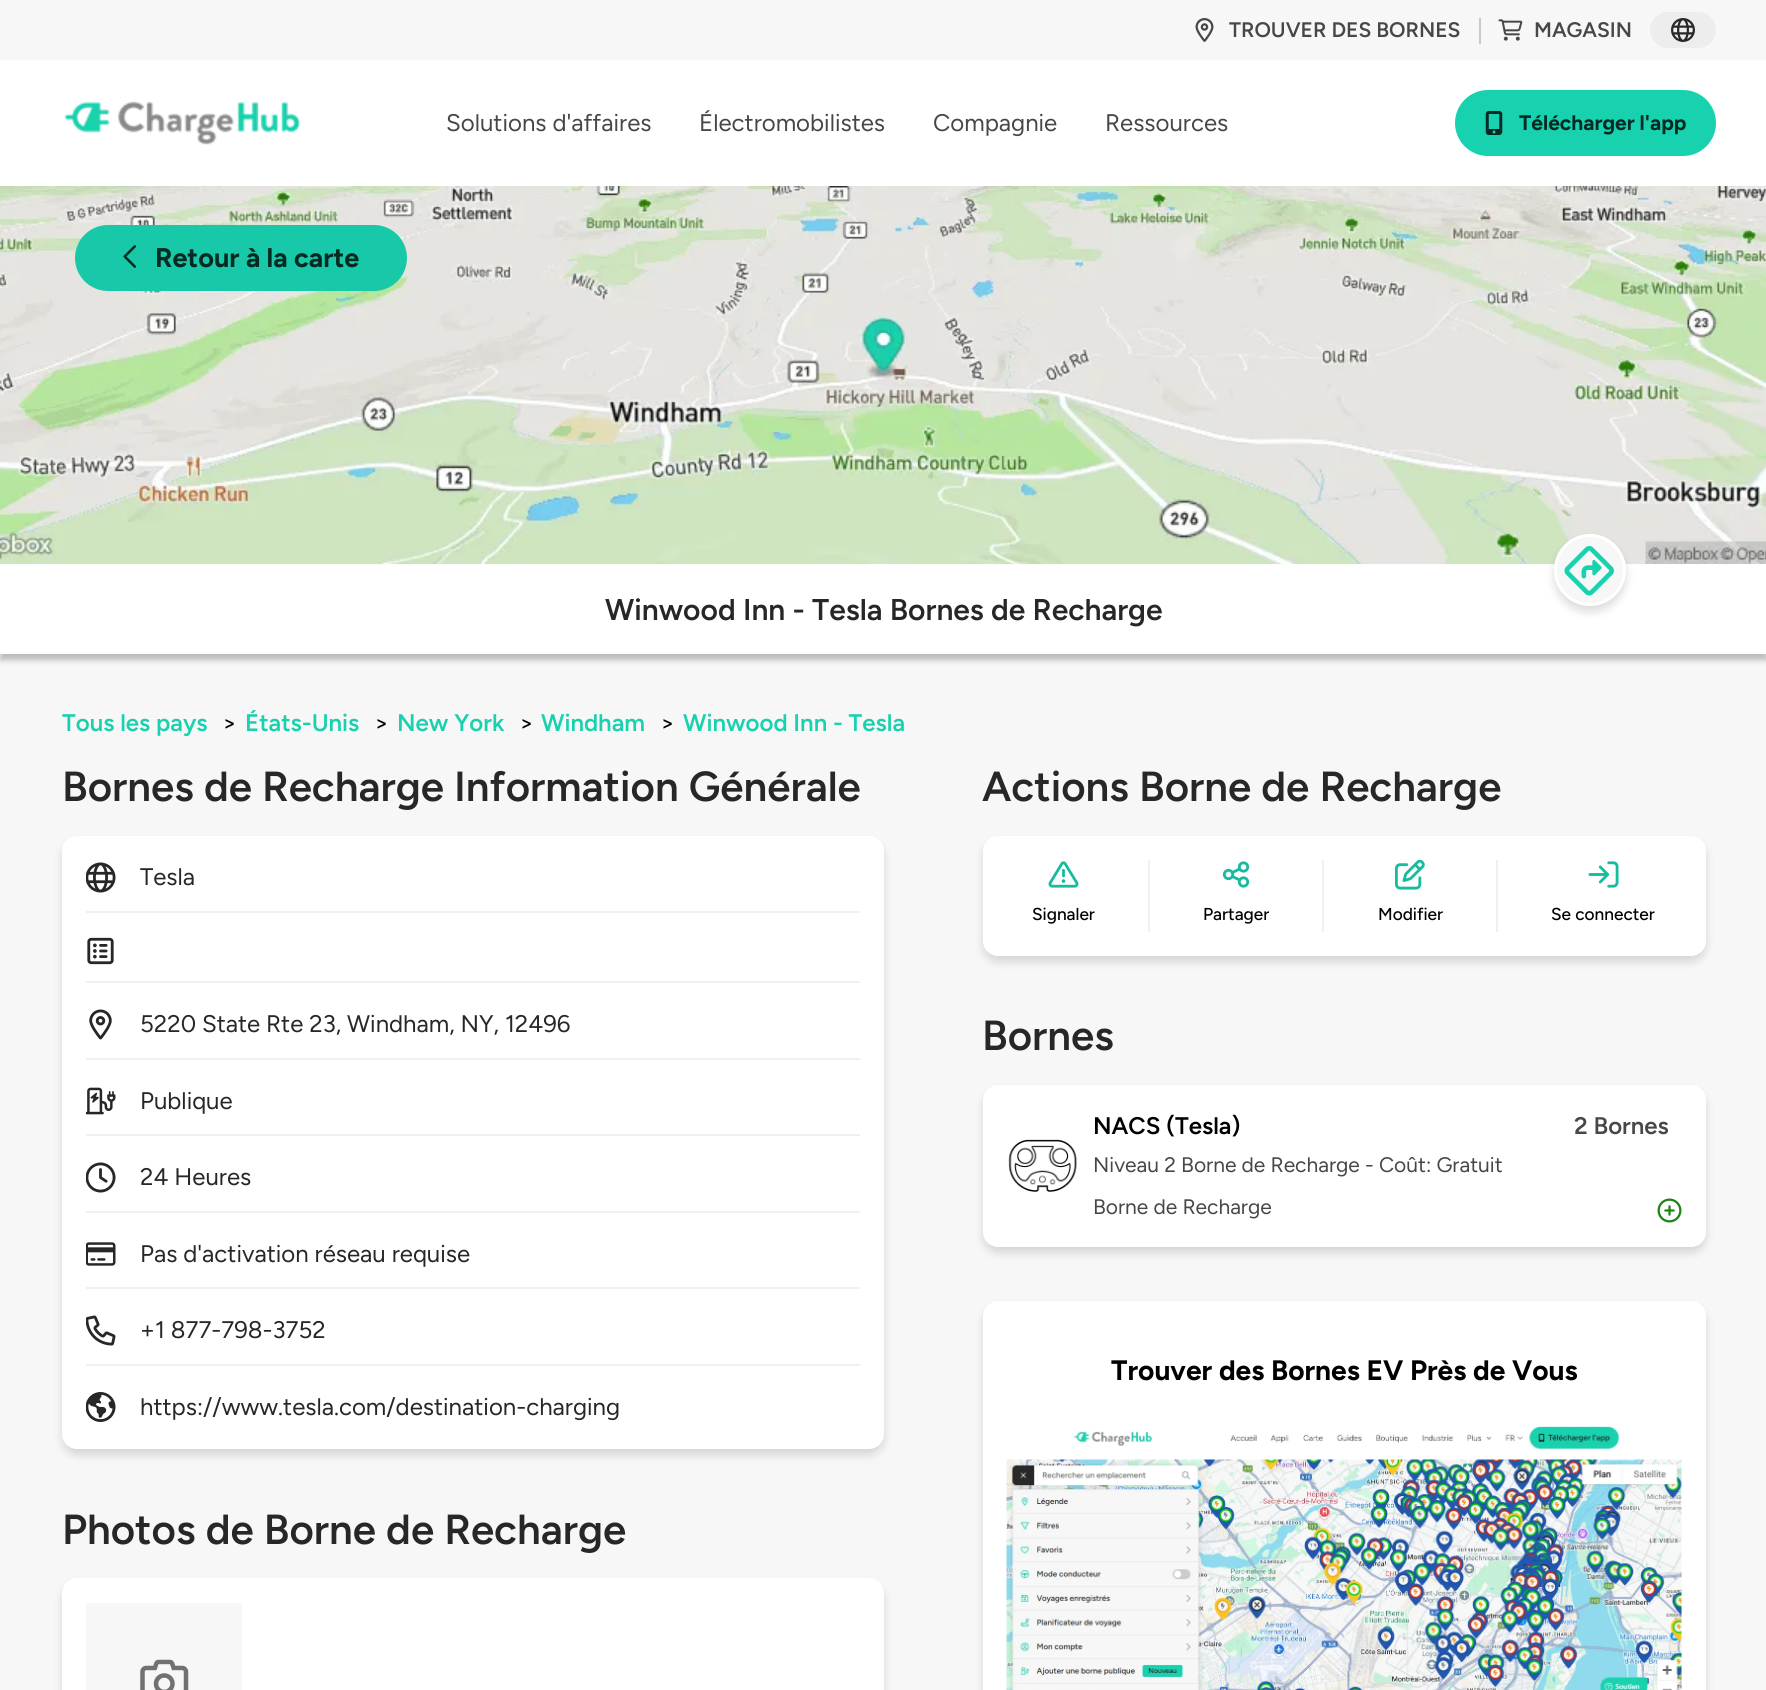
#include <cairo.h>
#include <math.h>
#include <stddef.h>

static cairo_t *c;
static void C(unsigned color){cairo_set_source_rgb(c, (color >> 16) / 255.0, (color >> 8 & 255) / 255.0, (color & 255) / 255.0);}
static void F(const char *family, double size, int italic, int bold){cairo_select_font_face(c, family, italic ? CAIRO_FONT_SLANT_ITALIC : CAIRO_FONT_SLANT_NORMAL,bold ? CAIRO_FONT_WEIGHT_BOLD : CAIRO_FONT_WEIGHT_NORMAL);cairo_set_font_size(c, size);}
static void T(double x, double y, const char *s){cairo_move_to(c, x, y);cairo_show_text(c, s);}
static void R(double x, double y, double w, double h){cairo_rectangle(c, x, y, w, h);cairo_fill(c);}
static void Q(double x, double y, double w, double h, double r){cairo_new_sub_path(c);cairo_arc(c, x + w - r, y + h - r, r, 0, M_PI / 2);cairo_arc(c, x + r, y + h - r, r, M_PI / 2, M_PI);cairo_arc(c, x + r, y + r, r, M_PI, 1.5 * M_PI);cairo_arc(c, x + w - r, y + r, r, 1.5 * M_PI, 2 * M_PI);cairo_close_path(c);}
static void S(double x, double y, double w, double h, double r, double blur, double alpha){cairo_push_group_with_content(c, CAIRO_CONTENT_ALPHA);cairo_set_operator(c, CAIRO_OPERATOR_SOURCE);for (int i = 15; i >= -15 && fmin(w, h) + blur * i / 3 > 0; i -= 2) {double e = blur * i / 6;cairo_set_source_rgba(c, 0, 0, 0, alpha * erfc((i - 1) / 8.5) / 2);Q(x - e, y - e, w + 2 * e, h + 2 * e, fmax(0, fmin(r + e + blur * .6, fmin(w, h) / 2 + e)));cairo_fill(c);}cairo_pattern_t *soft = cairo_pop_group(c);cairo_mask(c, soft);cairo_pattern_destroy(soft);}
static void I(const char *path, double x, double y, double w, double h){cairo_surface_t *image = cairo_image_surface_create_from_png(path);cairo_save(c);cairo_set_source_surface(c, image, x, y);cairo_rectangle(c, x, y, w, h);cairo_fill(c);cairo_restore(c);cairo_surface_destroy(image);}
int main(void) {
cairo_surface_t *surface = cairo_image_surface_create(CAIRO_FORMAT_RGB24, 1766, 1690);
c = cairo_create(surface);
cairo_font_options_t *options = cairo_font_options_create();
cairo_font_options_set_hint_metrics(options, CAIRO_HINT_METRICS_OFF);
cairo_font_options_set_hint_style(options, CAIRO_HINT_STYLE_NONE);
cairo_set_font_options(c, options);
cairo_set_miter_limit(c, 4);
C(0xffffff);
cairo_paint(c);
C(0xf7f7f7);
R(0,0,1766,60);
C(0xc9c9c9);
R(1479,18,2,26);
I("1.png",1195,18,19,24);
F("Figtree SemiBold",21,0,0);
C(0x474747);
T(1229,37,"TROUVER DES BORNES");
I("2.png",1498,19,25,22);
T(1534,37,"MAGASIN");
C(0xededed);
Q(1650,12,66,36,18);
cairo_fill(c);
I("3.png",1671,18,24,24);
I("4.png",64,101,237,44);
F("Figtree",24,0,0);
C(0x474747);
T(446,131,"Solutions d'affaires");
T(699,131,"Électromobilistes");
T(933,131,"Compagnie");
T(1105,131,"Ressources");
C(0x18d1ae);
Q(1455,90,261,66,33);
cairo_fill(c);
I("5.png",1485,111,18,24);
F("Figtree",21,0,1);
C(0x052a23);
T(1519,130,"Télécharger l'app");
C(0xf7f7f7);
R(0,654,1766,1036);
C(0x000000);
S(0,570,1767,90,0,3,.25);
I("6.png",0,186,1766,378);
C(0x17c9a8);
Q(75,225,332,66,33);
cairo_fill(c);
I("7.png",123,245,14,23);
F("Figtree",27,0,1);
C(0x052a23);
T(155,267,"Retour à la carte");
C(0xffffff);
R(0,565,1766,89);
F("Figtree SemiBold",30,0,0);
C(0x272727);
T(605,620,"Winwood Inn - Tesla Bornes de Recharge");
C(0x242424);
S(1554,540,72,72,36,4.5,.16);
C(0xf7f7f7);
cairo_arc(c,1590,570,34.5,0,2 * M_PI);
cairo_fill_preserve(c);
C(0xffffff);
cairo_set_line_width(c,3);
cairo_stroke(c);
I("8.png",1564,546,50,50);
F("Figtree SemiBold",24,0,0);
C(0x18d1ae);
T(62,731,"Tous les pays");
F("Figtree",24,0,0);
C(0x000000);
T(222,731,">");
F("Figtree SemiBold",24,0,0);
C(0x18d1ae);
T(245,731,"États-Unis");
F("Figtree",24,0,0);
C(0x000000);
T(374,731,">");
F("Figtree SemiBold",24,0,0);
C(0x18d1ae);
T(397,731,"New York");
F("Figtree",24,0,0);
C(0x000000);
T(519,731,">");
F("Figtree SemiBold",24,0,0);
C(0x18d1ae);
T(541,731,"Windham");
F("Figtree",24,0,0);
C(0x000000);
T(660,731,">");
F("Figtree SemiBold",24,0,0);
C(0x18d1ae);
T(683,731,"Winwood Inn - Tesla");
F("Figtree SemiBold",42,0,0);
C(0x272727);
T(62,801,"Bornes de Recharge Information Générale");
C(0x242424);
S(62,842,822,613,15,4.5,.16);
C(0xffffff);
Q(62,836,822,613,15);
cairo_fill(c);
C(0xf0f0f0);
R(86,911,774,2);
I("9.png",86,862,30,31);
F("Figtree",24,0,0);
C(0x272727);
T(140,885,"Tesla");
C(0xf0f0f0);
R(86,981,774,2);
I("10.png",87,937,27,28);
R(86,1058,774,2);
I("11.png",89,1009,23,31);
C(0x272727);
T(140,1032,"5220 State Rte 23, Windham, NY, 12496");
C(0xf0f0f0);
R(86,1134,774,2);
I("12.png",86,1087,30,28);
C(0x272727);
T(140,1109,"Publique");
C(0xf0f0f0);
R(86,1211,774,2);
I("13.png",86,1162,30,31);
C(0x272727);
T(140,1185,"24 Heures");
C(0xf0f0f0);
R(86,1287,774,2);
I("14.png",86,1242,30,24);
C(0x272727);
T(140,1262,"Pas d'activation réseau requise");
C(0xf0f0f0);
R(86,1364,774,2);
I("15.png",86,1315,30,31);
C(0x272727);
T(140,1338,"+1 877-798-3752");
I("16.png",86,1392,30,30);
T(140,1415,"https://www.tesla.com/destination-charging");
F("Figtree SemiBold",42,0,0);
T(62,1544,"Photos de Borne de Recharge");
C(0x242424);
S(62,1584,822,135,15,4.5,.16);
C(0xffffff);
Q(62,1578,822,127,15);
cairo_fill(c);
I("17.png",86,1603,156,87);
C(0x272727);
T(982,801,"Actions Borne de Recharge");
C(0x242424);
S(983,842,723,120,15,4.5,.16);
C(0xffffff);
Q(983,836,723,120,15);
cairo_fill(c);
I("18.png",1048,861,31,27);
F("Figtree Medium",17.25,0,0);
C(0x000000);
T(1032,920,"Signaler");
C(0xf0f0f0);
R(1148,860,2,72);
I("19.png",1222,861,28,27);
C(0x000000);
T(1203,920,"Partager");
C(0xf0f0f0);
R(1322,860,2,72);
I("20.png",1395,859,30,31);
C(0x000000);
T(1378,920,"Modifier");
C(0xf0f0f0);
R(1496,860,2,72);
I("21.png",1588,861,31,27);
C(0x000000);
T(1551,920,"Se connecter");
F("Figtree SemiBold",42,0,0);
C(0x272727);
T(982,1050,"Bornes");
C(0x242424);
S(983,1091,723,162,15,4.5,.16);
C(0xffffff);
Q(983,1085,723,162,15);
cairo_fill(c);
I("22.png",1008,1139,69,53);
F("Figtree SemiBold",24,0,0);
C(0x000000);
T(1093,1134,"NACS (Tesla)");
C(0x474747);
T(1574,1134,"2 Bornes");
F("Figtree",21,0,0);
T(1093,1172,"Niveau 2 Borne de Recharge - Coût: Gratuit");
T(1093,1214,"Borne de Recharge");
I("23.png",1657,1198,25,25);
C(0x242424);
S(983,1307,723,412,15,4.5,.16);
C(0xffffff);
Q(983,1301,723,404,15);
cairo_fill(c);
F("Figtree",28.1,0,1);
C(0x000000);
T(1111,1380,"Trouver des Bornes EV Près de Vous");
I("24.png",1006,1424,676,266);
cairo_surface_write_to_png(surface, "o.png");
cairo_font_options_destroy(options);
cairo_destroy(c);
cairo_surface_destroy(surface);
return 0;
}
